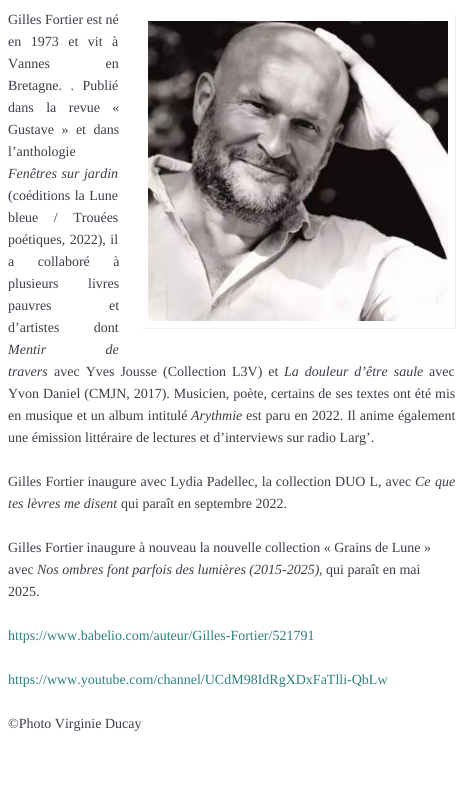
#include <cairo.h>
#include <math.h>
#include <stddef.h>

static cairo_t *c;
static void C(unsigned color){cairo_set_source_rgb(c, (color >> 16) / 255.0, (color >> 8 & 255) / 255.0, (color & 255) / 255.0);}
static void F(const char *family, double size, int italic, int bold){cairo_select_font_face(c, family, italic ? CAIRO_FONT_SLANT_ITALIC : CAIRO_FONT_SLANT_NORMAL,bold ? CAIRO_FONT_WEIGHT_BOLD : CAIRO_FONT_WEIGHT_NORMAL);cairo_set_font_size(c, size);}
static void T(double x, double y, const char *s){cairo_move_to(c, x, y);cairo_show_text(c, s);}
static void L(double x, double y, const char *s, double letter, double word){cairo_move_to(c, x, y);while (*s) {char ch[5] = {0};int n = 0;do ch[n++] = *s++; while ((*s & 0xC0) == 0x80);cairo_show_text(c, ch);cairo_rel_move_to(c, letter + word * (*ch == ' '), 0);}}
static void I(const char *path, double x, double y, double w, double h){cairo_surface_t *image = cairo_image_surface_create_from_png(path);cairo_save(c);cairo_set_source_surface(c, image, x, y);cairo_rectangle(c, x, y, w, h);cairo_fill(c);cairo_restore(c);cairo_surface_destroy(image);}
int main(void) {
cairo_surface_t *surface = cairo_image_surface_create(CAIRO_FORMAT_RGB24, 463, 788);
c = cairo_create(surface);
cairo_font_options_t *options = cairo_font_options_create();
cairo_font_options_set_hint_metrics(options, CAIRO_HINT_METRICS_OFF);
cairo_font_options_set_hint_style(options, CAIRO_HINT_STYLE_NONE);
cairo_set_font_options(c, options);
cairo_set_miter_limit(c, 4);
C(0xffffff);
cairo_paint(c);
F("Liberation Serif",14,0,0);
C(0x3c3d47);
T(8,24,"Gilles Fortier est né");
C(0xf2eff4);
cairo_new_path(c);
cairo_move_to(c,142,328);
cairo_line_to(c,142,329);
cairo_line_to(c,456,329);
cairo_line_to(c,456,15);
cairo_line_to(c,455,15);
cairo_line_to(c,455,328);
cairo_close_path(c);
cairo_fill(c);
I("1.png",148,21,300,300);
C(0x3c3d47);
L(8,46,"en 1973 et vit à",0,6);
L(8,68,"Vannes en",0,52);
L(8,90,"Bretagne. . Publié",0,5);
L(8,112,"dans la revue «",0,9);
L(8,134,"Gustave » et dans",0,4);
T(8,156,"l’anthologie");
F("Liberation Serif",14,1,0);
L(8,178,"Fenêtres sur jardin",0,1);
F("Liberation Serif",14,0,0);
L(8,200,"(coéditions la Lune",0,1);
L(8,222,"bleue / Trouées",0,12);
L(8,244,"poétiques, 2022), il",0,1);
L(8,266,"a collaboré à",0,20);
L(8,288,"plusieurs livres",0,26);
L(8,310,"pauvres et",0,54);
L(8,332,"d’artistes dont",0,31);
F("Liberation Serif",14,1,0);
L(8,354,"Mentir de",0,56);
T(8,376,"travers");
F("Liberation Serif",14,0,0);
L(54,376,"avec Yves Jousse (Collection L3V) et",0,2.5);
F("Liberation Serif",14,1,0);
L(284,376,"La douleur d’être saule",0,2.5);
F("Liberation Serif",14,0,0);
T(429,376,"avec");
L(8,398,"Yvon Daniel (CMJN, 2017). Musicien, poète, certains de ses textes ont été mis",0,.4);
L(8,420,"en musique et un album intitulé",0,.5);
F("Liberation Serif",14,1,0);
T(191,420,"Arythmie");
F("Liberation Serif",14,0,0);
L(246,420,"est paru en 2022. Il anime également",0,.5);
T(8,442,"une émission littéraire de lectures et d’interviews sur radio Larg’.");
L(8,486,"Gilles Fortier inaugure avec Lydia Padellec, la collection DUO L, avec",0,.5);
F("Liberation Serif",14,1,0);
L(415,486,"Ce que",0,1);
T(8,508,"tes lèvres me disent");
F("Liberation Serif",14,0,0);
T(121,508,"qui paraît en septembre 2022.");
T(8,552,"Gilles Fortier inaugure à nouveau la nouvelle collection « Grains de Lune »");
T(8,574,"avec");
F("Liberation Serif",14,1,0);
T(37,574,"Nos ombres font parfois des lumières (2015-2025)");
F("Liberation Serif",14,0,0);
T(319,574,", qui paraît en mai");
T(8,596,"2025.");
C(0x2c807f);
T(8,640,"https://www.babelio.com/auteur/Gilles-Fortier/521791");
T(8,684,"https://www.youtube.com/channel/UCdM98IdRgXDxFaTlli-QbLw");
C(0x3c3d47);
T(8,728,"©Photo Virginie Ducay");
cairo_surface_write_to_png(surface, "o.png");
cairo_font_options_destroy(options);
cairo_destroy(c);
cairo_surface_destroy(surface);
return 0;
}
